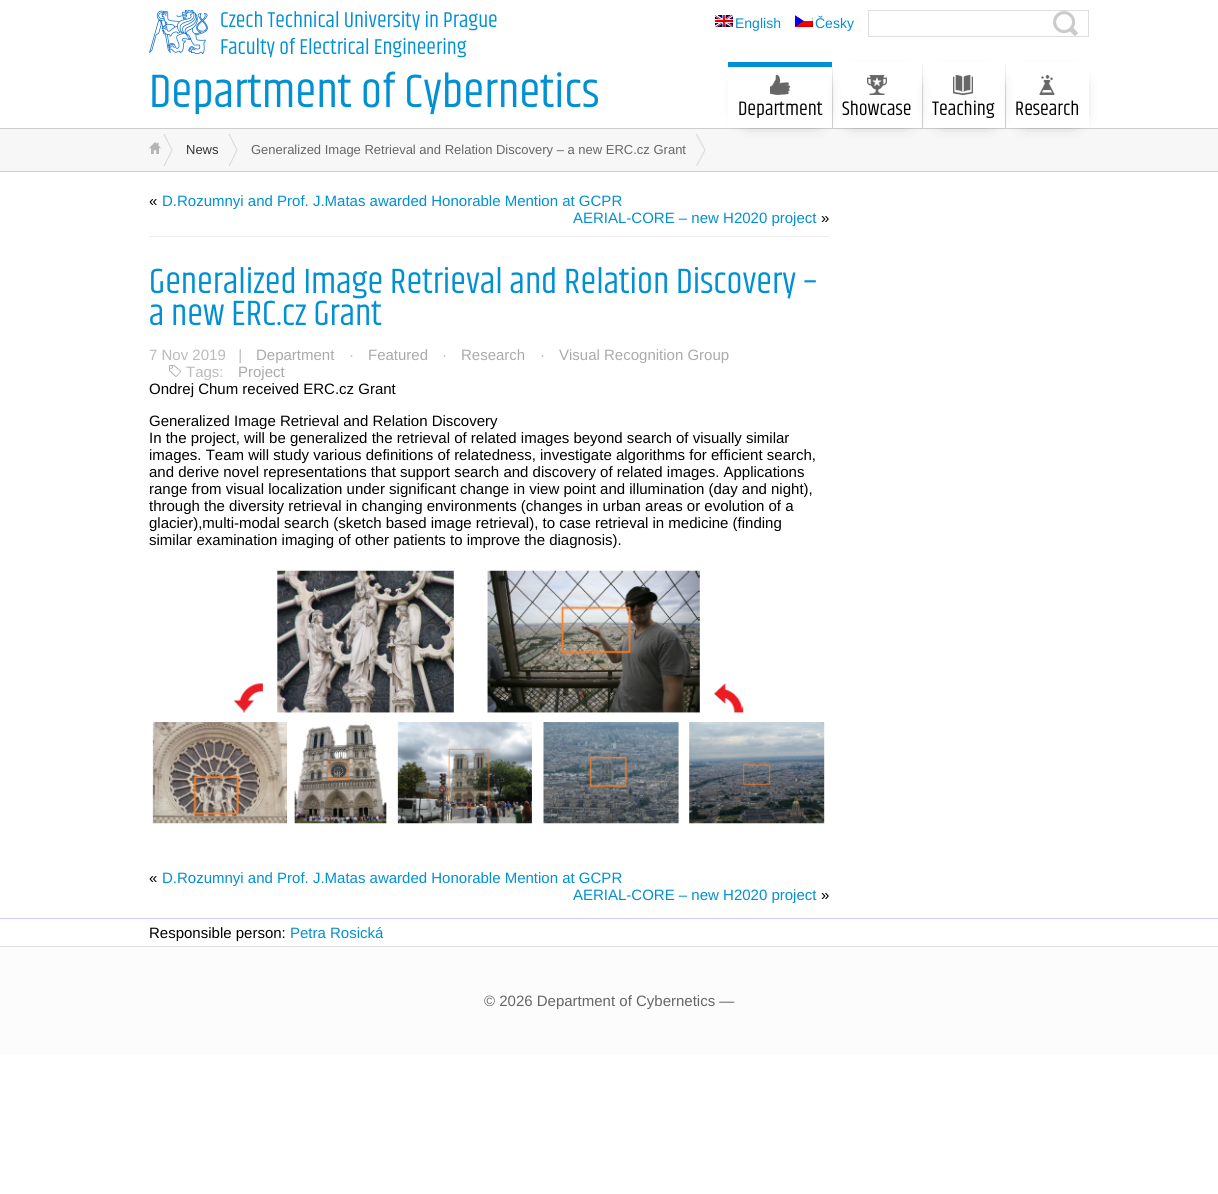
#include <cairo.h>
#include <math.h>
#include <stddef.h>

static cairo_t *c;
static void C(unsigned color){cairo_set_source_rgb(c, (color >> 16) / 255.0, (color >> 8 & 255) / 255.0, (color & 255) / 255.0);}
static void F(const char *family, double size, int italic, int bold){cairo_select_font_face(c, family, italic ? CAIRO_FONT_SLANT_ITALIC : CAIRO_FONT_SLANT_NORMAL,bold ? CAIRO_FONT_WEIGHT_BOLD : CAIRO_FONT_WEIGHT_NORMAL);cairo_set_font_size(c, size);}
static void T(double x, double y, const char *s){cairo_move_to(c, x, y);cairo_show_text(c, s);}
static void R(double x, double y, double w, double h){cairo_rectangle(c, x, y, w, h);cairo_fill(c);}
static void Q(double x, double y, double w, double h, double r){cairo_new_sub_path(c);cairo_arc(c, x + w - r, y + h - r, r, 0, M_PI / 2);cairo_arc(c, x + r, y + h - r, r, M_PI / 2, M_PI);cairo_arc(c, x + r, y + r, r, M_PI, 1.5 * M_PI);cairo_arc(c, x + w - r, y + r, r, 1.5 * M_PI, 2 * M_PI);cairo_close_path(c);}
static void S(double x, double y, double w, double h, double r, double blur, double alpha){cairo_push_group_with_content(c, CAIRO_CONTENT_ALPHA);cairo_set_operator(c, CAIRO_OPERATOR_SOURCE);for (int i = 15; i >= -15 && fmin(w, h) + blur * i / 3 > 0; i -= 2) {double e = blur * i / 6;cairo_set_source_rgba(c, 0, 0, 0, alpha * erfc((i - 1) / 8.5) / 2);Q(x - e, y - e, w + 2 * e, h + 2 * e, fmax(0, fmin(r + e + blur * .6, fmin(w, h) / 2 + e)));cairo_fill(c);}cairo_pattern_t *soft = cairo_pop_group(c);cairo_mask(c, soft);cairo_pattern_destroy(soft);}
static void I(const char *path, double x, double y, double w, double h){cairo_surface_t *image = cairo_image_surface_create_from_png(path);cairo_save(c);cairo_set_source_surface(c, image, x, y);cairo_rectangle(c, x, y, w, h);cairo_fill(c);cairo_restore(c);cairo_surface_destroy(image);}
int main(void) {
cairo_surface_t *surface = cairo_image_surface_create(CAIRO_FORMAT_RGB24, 1218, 1194);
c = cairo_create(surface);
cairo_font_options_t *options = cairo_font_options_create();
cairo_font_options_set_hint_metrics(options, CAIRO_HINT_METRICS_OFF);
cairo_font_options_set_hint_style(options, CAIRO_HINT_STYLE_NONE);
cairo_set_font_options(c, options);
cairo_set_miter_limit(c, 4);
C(0xffffff);
cairo_paint(c);
I("1.png",149,10,59,44);
F("Khand",22,0,0);
C(0x0090d3);
T(220,27,"Czech Technical University in Prague");
T(220,54,"Faculty of Electrical Engineering");
F("Khand",48,0,0);
T(149,107,"Department of Cybernetics");
I("2.png",715,15,18,12);
F("Liberation Sans",14,0,0);
T(735,28,"English");
I("3.png",795,15,18,12);
T(815,28,"Česky");
I("4.png",1053,11,25,25);
cairo_rectangle(c,868.5,10.5,220,26);
C(0xdddddd);
cairo_set_line_width(c,1);
cairo_stroke(c);
C(0xf7f7f7);
R(0,129,1218,42);
C(0xcccccc);
R(0,128,1218,1);
cairo_save(c);
cairo_set_fill_rule(c,CAIRO_FILL_RULE_EVEN_ODD);
cairo_new_path(c);
cairo_move_to(c,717,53);
cairo_line_to(c,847,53);
cairo_line_to(c,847,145);
cairo_line_to(c,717,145);
cairo_close_path(c);
cairo_move_to(c,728,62);
cairo_line_to(c,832,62);
cairo_line_to(c,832,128);
cairo_line_to(c,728,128);
cairo_close_path(c);
cairo_clip(c);
C(0x000000);
S(748,84,68,30,0,10,1);
cairo_restore(c);
C(0x0090d3);
R(728,62,104,5);
I("5.png",770,75,20,20);
F("Khand",20,0,0);
C(0x000000);
T(738,115,"Department");
cairo_save(c);
cairo_set_fill_rule(c,CAIRO_FILL_RULE_EVEN_ODD);
cairo_new_path(c);
cairo_move_to(c,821,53);
cairo_line_to(c,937,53);
cairo_line_to(c,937,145);
cairo_line_to(c,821,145);
cairo_close_path(c);
cairo_move_to(c,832,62);
cairo_line_to(c,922,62);
cairo_line_to(c,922,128);
cairo_line_to(c,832,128);
cairo_close_path(c);
cairo_clip(c);
C(0x000000);
S(852,84,54,30,0,10,1);
cairo_restore(c);
I("6.png",832,63,1,65);
I("7.png",867,75,20,20);
T(842,115,"Showcase");
cairo_save(c);
cairo_set_fill_rule(c,CAIRO_FILL_RULE_EVEN_ODD);
cairo_new_path(c);
cairo_move_to(c,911,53);
cairo_line_to(c,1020,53);
cairo_line_to(c,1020,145);
cairo_line_to(c,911,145);
cairo_close_path(c);
cairo_move_to(c,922,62);
cairo_line_to(c,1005,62);
cairo_line_to(c,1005,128);
cairo_line_to(c,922,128);
cairo_close_path(c);
cairo_clip(c);
C(0x000000);
S(942,84,47,30,0,10,1);
cairo_restore(c);
I("6.png",922,63,1,65);
I("8.png",953,75,20,20);
T(932,115,"Teaching");
cairo_save(c);
cairo_set_fill_rule(c,CAIRO_FILL_RULE_EVEN_ODD);
cairo_new_path(c);
cairo_move_to(c,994,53);
cairo_line_to(c,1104,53);
cairo_line_to(c,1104,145);
cairo_line_to(c,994,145);
cairo_close_path(c);
cairo_move_to(c,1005,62);
cairo_line_to(c,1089,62);
cairo_line_to(c,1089,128);
cairo_line_to(c,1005,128);
cairo_close_path(c);
cairo_clip(c);
C(0x000000);
S(1025,84,48,30,0,10,1);
cairo_restore(c);
I("6.png",1005,63,1,65);
I("9.png",1039,75,16,20);
T(1015,115,"Research");
C(0xcccccc);
R(0,171,1218,1);
I("10.png",149,142,12,12);
I("11.png",163,134,10,32);
F("Liberation Sans",13,0,0);
C(0x333333);
T(186,154,"News");
I("11.png",228,134,10,32);
C(0x666666);
T(251,154,"Generalized Image Retrieval and Relation Discovery – a new ERC.cz Grant");
I("12.png",695,134,11,32);
F("Liberation Sans",15,0,0);
C(0x000000);
T(149,206,"«");
C(0x0090d3);
T(162,206,"D.Rozumnyi and Prof. J.Matas awarded Honorable Mention at GCPR");
T(573,223,"AERIAL-CORE – new H2020 project");
C(0x000000);
T(821,223,"»");
C(0xeeeeee);
R(149,236,680,1);
F("Khand",36,0,0);
C(0x0090d3);
T(149,293,"Generalized Image Retrieval and Relation Discovery –");
T(149,325,"a new ERC.cz Grant");
F("Liberation Sans",15,0,0);
C(0xbbbbbb);
T(149,360,"7 Nov 2019   |");
C(0xaaaaaa);
T(256,360,"Department");
C(0xbbbbbb);
T(349,360,"·");
C(0xaaaaaa);
T(368,360,"Featured");
C(0xbbbbbb);
T(442,360,"·");
C(0xaaaaaa);
T(461,360,"Research");
C(0xbbbbbb);
T(540,360,"·");
C(0xaaaaaa);
T(559,360,"Visual Recognition Group");
I("13.png",169,365,12,12);
C(0xbbbbbb);
T(186,377,"Tags:");
C(0xaaaaaa);
T(238,377,"Project");
C(0x000000);
T(149,394,"Ondrej Chum received ERC.cz Grant");
T(149,426,"Generalized Image Retrieval and Relation Discovery");
T(149,443,"In the project, will be generalized the retrieval of related images beyond search of visually similar");
T(149,460,"images. Team will study various definitions of relatedness, investigate algorithms for efficient search,");
T(149,477,"and derive novel representations that support search and discovery of related images. Applications");
T(149,494,"range from visual localization under significant change in view point and illumination (day and night),");
T(149,511,"through the diversity retrieval in changing environments (changes in urban areas or evolution of a");
T(149,528,"glacier),multi-modal search (sketch based image retrieval), to case retrieval in medicine (finding");
T(149,545,"similar examination imaging of other patients to improve the diagnosis).");
I("14.png",152,570,673,254);
T(149,883,"«");
C(0x0090d3);
T(162,883,"D.Rozumnyi and Prof. J.Matas awarded Honorable Mention at GCPR");
T(573,900,"AERIAL-CORE – new H2020 project");
C(0x000000);
T(821,900,"»");
C(0xccccff);
R(0,918,1218,1);
C(0x000000);
T(149,938,"Responsible person:");
C(0x0090d3);
T(290,938,"Petra Rosická");
C(0xfcfcfc);
R(0,947,1218,107);
C(0xdddddd);
R(0,946,1218,1);
C(0x666666);
T(484,1006,"© 2026 Department of Cybernetics —");
cairo_surface_write_to_png(surface, "o.png");
cairo_font_options_destroy(options);
cairo_destroy(c);
cairo_surface_destroy(surface);
return 0;
}
